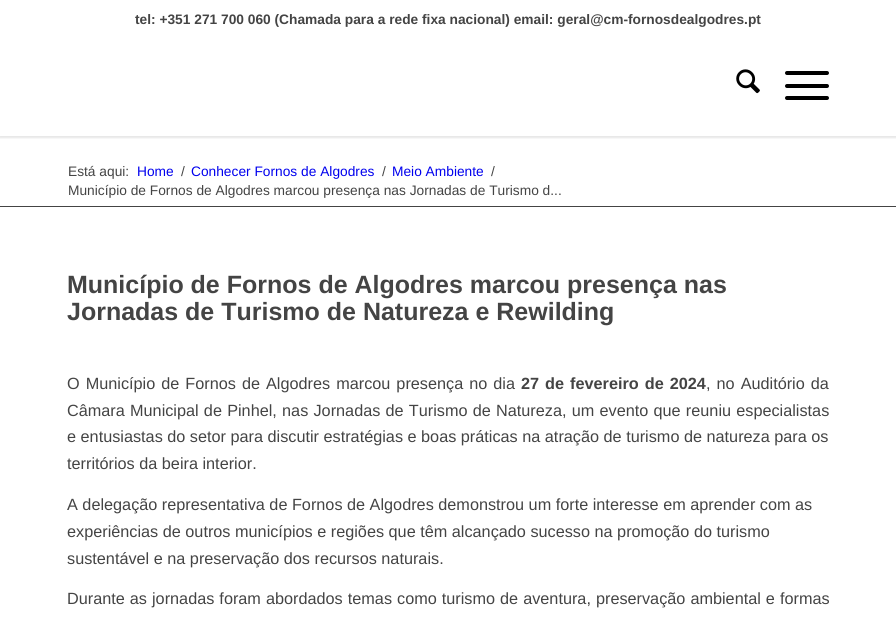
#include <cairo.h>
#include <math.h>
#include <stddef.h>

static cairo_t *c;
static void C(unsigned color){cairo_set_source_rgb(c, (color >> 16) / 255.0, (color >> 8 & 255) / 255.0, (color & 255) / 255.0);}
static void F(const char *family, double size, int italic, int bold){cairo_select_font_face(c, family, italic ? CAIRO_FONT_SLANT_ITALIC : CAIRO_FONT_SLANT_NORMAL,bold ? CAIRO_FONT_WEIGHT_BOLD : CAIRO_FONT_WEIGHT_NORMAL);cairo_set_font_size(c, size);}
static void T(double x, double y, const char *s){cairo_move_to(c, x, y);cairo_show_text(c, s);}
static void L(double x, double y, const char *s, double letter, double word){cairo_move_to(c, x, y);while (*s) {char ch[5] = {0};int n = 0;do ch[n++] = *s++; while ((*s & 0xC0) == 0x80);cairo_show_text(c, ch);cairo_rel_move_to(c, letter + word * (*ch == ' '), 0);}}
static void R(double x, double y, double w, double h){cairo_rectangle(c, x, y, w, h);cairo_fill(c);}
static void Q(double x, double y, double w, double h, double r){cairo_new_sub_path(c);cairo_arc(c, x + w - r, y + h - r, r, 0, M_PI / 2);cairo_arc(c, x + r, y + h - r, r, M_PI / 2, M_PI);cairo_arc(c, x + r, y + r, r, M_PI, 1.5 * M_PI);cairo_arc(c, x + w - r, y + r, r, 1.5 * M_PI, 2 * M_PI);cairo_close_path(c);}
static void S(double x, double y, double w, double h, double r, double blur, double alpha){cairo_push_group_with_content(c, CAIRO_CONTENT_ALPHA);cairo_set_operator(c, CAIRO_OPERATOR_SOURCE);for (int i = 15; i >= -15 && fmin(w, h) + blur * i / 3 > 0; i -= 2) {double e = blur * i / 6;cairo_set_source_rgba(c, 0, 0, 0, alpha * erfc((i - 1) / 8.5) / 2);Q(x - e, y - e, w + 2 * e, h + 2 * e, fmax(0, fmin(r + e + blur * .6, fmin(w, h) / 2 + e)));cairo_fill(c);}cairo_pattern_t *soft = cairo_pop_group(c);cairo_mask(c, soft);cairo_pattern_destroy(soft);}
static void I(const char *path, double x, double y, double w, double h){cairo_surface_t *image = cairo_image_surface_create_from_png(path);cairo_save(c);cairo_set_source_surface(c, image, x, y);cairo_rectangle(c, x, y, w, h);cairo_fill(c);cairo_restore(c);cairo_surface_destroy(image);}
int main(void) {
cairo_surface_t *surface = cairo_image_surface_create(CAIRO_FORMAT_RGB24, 896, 626);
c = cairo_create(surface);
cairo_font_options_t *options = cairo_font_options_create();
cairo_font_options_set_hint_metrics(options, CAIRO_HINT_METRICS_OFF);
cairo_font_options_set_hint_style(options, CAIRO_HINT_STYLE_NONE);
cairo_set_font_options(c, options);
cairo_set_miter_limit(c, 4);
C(0xffffff);
cairo_paint(c);
cairo_save(c);
cairo_rectangle(c,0,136,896,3);
cairo_clip(c);
C(0x000000);
S(-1,-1,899,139,0,1,.1);
cairo_restore(c);
F("Liberation Sans",13.75,0,1);
C(0x444444);
T(135,24,"tel: +351 271 700 060 (Chamada para a rede fixa nacional) email: geral@cm-fornosdealgodres.pt");
I("1.png",736,69,24,25);
C(0x000000);
Q(785,84,44,4,2);
cairo_fill(c);
Q(785,71,44,4,2);
cairo_fill(c);
Q(785,96,44,4,2);
cairo_fill(c);
F("Liberation Sans",13.75,0,0);
C(0x444444);
T(68,176,"Está aqui:");
C(0x0000ee);
T(137,176,"Home");
C(0x444444);
T(181,176,"/");
C(0x0000ee);
T(191,176,"Conhecer Fornos de Algodres");
C(0x444444);
T(382,176,"/");
C(0x0000ee);
T(392,176,"Meio Ambiente");
C(0x444444);
T(491,176,"/");
T(68,195,"Município de Fornos de Algodres marcou presença nas Jornadas de Turismo d...");
R(0,206,896,1);
F("Liberation Sans",25,0,1);
T(67,293,"Município de Fornos de Algodres marcou presença nas");
T(67,320,"Jornadas de Turismo de Natureza e Rewilding");
F("Liberation Sans",16.25,0,0);
L(67,389,"O Município de Fornos de Algodres marcou presença no dia",0,1.5);
F("Liberation Sans",16.25,0,1);
L(521,389,"27 de fevereiro de 2024",0,1.5);
F("Liberation Sans",16.25,0,0);
L(706,389,", no Auditório da",0,1.5);
L(67,416,"Câmara Municipal de Pinhel, nas Jornadas de Turismo de Natureza, um evento que reuniu especialistas",0,.7);
T(67,442,"e entusiastas do setor para discutir estratégias e boas práticas na atração de turismo de natureza para os");
T(67,469,"territórios da beira interior.");
T(67,510,"A delegação representativa de Fornos de Algodres demonstrou um forte interesse em aprender com as");
T(67,537,"experiências de outros municípios e regiões que têm alcançado sucesso na promoção do turismo");
T(67,564,"sustentável e na preservação dos recursos naturais.");
L(67,604,"Durante as jornadas foram abordados temas como turismo de aventura, preservação ambiental e formas",0,.5);
cairo_surface_write_to_png(surface, "o.png");
cairo_font_options_destroy(options);
cairo_destroy(c);
cairo_surface_destroy(surface);
return 0;
}
